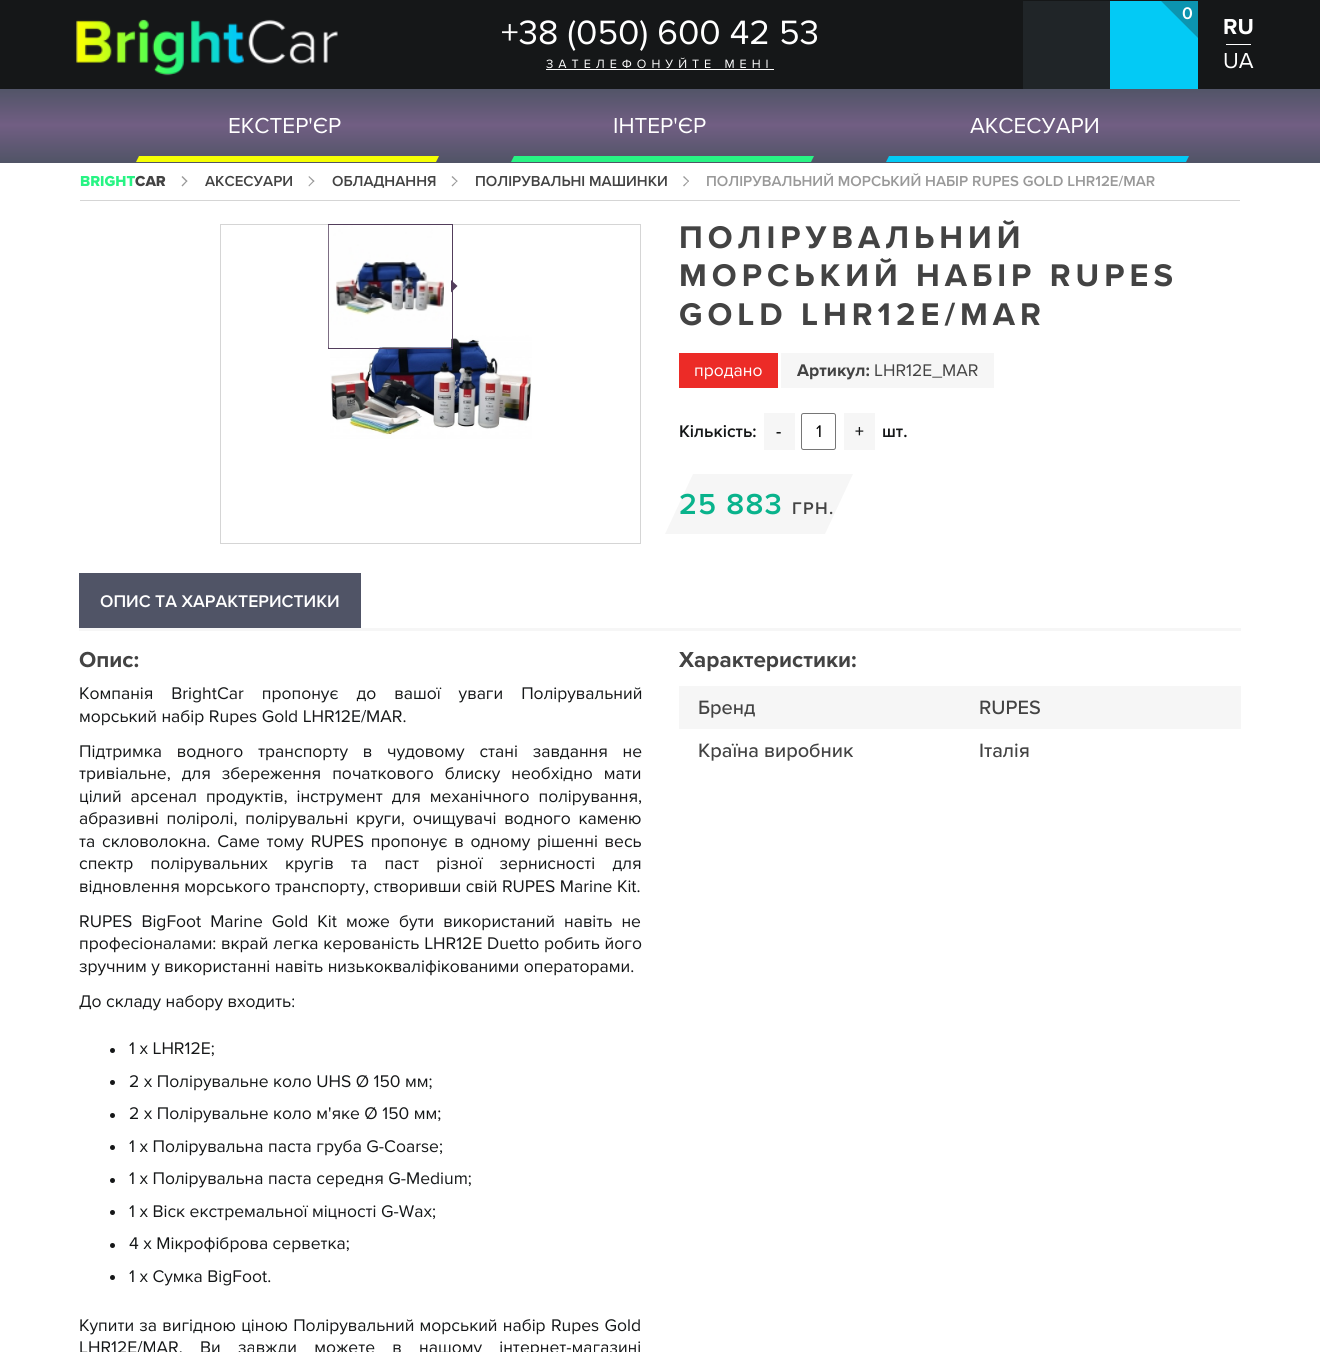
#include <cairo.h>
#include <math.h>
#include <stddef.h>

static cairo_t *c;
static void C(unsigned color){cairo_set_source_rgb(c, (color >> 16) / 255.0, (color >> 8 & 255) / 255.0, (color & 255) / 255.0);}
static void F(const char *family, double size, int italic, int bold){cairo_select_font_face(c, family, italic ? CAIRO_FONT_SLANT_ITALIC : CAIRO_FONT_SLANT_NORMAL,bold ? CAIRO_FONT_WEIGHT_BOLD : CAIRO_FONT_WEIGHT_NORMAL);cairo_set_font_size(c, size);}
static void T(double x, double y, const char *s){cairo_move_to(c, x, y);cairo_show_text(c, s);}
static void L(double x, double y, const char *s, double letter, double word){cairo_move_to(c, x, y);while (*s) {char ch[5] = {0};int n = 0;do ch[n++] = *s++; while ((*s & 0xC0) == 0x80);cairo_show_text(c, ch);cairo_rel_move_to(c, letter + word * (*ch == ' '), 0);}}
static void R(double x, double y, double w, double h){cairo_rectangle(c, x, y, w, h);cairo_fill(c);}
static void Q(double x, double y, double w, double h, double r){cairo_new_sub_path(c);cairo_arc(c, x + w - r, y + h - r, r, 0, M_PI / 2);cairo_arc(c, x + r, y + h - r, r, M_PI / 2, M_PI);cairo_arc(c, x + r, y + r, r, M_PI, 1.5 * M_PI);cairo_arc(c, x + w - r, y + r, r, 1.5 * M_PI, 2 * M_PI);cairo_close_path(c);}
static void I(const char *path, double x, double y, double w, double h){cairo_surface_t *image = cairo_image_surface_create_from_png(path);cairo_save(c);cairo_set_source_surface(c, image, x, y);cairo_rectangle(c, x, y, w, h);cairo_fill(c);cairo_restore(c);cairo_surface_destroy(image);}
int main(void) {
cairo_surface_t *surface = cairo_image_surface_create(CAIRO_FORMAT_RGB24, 1320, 1352);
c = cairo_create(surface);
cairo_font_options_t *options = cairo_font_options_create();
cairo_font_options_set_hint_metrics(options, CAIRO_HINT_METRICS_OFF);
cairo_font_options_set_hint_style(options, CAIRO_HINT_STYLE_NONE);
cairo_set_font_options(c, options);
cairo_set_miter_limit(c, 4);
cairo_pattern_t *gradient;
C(0xffffff);
cairo_paint(c);
C(0x151718);
R(0,0,1320,89);
I("1.png",76,19,262,57);
F("Proxima Nova",35,0,0);
C(0xffffff);
T(501,44,"+38 (050) 600 42 53");
F("Proxima Nova",12.5,0,0);
L(546,68,"ЗАТЕЛЕФОНУЙТЕ МЕНІ",5,0);
R(546,69,228,1);
C(0x202528);
R(1023,1,87,88);
C(0x03caf5);
R(1110,1,88,88);
cairo_save(c);
cairo_rectangle(c,1110,1,88,88);
cairo_clip(c);
C(0x0c94b0);
cairo_new_path(c);
cairo_move_to(c,1178,-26);
cairo_line_to(c,1240,36);
cairo_line_to(c,1218,58);
cairo_line_to(c,1156,-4);
cairo_close_path(c);
cairo_fill(c);
cairo_restore(c);
F("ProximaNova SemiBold",17.5,0,0);
C(0xffffff);
T(1182,19,"0");
F("Proxima Nova",22.5,0,1);
T(1223,34,"RU");
R(1226,44,25,1);
F("Proxima Nova",22.5,0,0);
T(1223,68,"UA");
gradient = cairo_pattern_create_linear(660,87,660,163);
cairo_pattern_add_color_stop_rgba(gradient,0,0.314,0.329,0.4,1);
cairo_pattern_add_color_stop_rgba(gradient,.5,0.443,0.369,0.514,1);
cairo_pattern_add_color_stop_rgba(gradient,1,0.314,0.329,0.4,1);
cairo_set_source(c,gradient);
cairo_pattern_destroy(gradient);
R(0,89,1320,74);
C(0xffffff);
T(228,133,"ЕКСТЕР'ЄР");
C(0xf5ff03);
cairo_new_path(c);
cairo_move_to(c,139,156);
cairo_line_to(c,439,156);
cairo_line_to(c,436,162);
cairo_line_to(c,136,162);
cairo_close_path(c);
cairo_fill(c);
C(0xffffff);
T(613,133,"ІНТЕР'ЄР");
C(0x28f484);
cairo_new_path(c);
cairo_move_to(c,514,156);
cairo_line_to(c,814,156);
cairo_line_to(c,811,162);
cairo_line_to(c,511,162);
cairo_close_path(c);
cairo_fill(c);
C(0xffffff);
T(970,133,"АКСЕСУАРИ");
C(0x03caf5);
cairo_new_path(c);
cairo_move_to(c,889,156);
cairo_line_to(c,1189,156);
cairo_line_to(c,1186,162);
cairo_line_to(c,886,162);
cairo_close_path(c);
cairo_fill(c);
F("Proxima Nova ExtraBold",15,0,0);
C(0x28f484);
T(80,186,"BRIGHT");
C(0x434343);
T(135,186,"CAR");
C(0x999999);
cairo_new_path(c);
cairo_move_to(c,182.5,176);
cairo_line_to(c,187.5,181);
cairo_line_to(c,186.5,182);
cairo_line_to(c,181.5,177);
cairo_close_path(c);
cairo_fill(c);
cairo_new_path(c);
cairo_move_to(c,186.5,180.5);
cairo_line_to(c,187.5,181);
cairo_line_to(c,182.5,186.5);
cairo_line_to(c,181.5,185.5);
cairo_close_path(c);
cairo_fill(c);
F("ProximaNova SemiBold",15,0,0);
C(0x434343);
T(205,186,"АКСЕСУАРИ");
C(0x999999);
cairo_new_path(c);
cairo_move_to(c,309,176);
cairo_line_to(c,314.5,181);
cairo_line_to(c,313.5,182);
cairo_line_to(c,308.5,177);
cairo_close_path(c);
cairo_fill(c);
cairo_new_path(c);
cairo_move_to(c,313.5,180.5);
cairo_line_to(c,314.5,181);
cairo_line_to(c,309,186.5);
cairo_line_to(c,308.5,185.5);
cairo_close_path(c);
cairo_fill(c);
C(0x434343);
T(332,186,"ОБЛАДНАННЯ");
C(0x999999);
cairo_new_path(c);
cairo_move_to(c,452.5,176);
cairo_line_to(c,457.5,181);
cairo_line_to(c,457,182);
cairo_line_to(c,451.5,177);
cairo_close_path(c);
cairo_fill(c);
cairo_new_path(c);
cairo_move_to(c,457,180.5);
cairo_line_to(c,457.5,181);
cairo_line_to(c,452.5,186.5);
cairo_line_to(c,451.5,185.5);
cairo_close_path(c);
cairo_fill(c);
C(0x434343);
T(475,186,"ПОЛІРУВАЛЬНІ МАШИНКИ");
C(0x999999);
cairo_new_path(c);
cairo_move_to(c,684,176);
cairo_line_to(c,689,181);
cairo_line_to(c,688.5,182);
cairo_line_to(c,683,177);
cairo_close_path(c);
cairo_fill(c);
cairo_new_path(c);
cairo_move_to(c,688.5,180.5);
cairo_line_to(c,689,181);
cairo_line_to(c,684,186.5);
cairo_line_to(c,683,185.5);
cairo_close_path(c);
cairo_fill(c);
T(706,186,"ПОЛІРУВАЛЬНИЙ МОРСЬКИЙ НАБІР RUPES GOLD LHR12E/MAR");
C(0xd5d5d5);
R(80,200,1160,1);
cairo_rectangle(c,220.5,224.5,420,319);
cairo_set_line_width(c,1);
cairo_stroke(c);
I("2.png",330,335,202,104);
cairo_rectangle(c,328.5,224.5,124,124);
C(0x523d5b);
cairo_stroke(c);
I("3.png",328,225,124,123);
cairo_new_path(c);
cairo_move_to(c,451,292.5);
cairo_line_to(c,451,280);
cairo_line_to(c,457.5,286);
cairo_close_path(c);
cairo_fill(c);
F("Proxima Nova",32.5,0,1);
C(0x434343);
L(679,248,"ПОЛІРУВАЛЬНИЙ",5,0);
L(679,286,"МОРСЬКИЙ НАБІР RUPES",5,0);
L(679,325,"GOLD LHR12E/MAR",5,0);
C(0xec2b27);
R(679,353,99,35);
F("Proxima Nova",17.5,0,0);
C(0xffffff);
T(694,376,"продано");
C(0xf6f6f6);
R(781,353,213,35);
F("Proxima Nova",17.5,0,1);
C(0x434343);
T(797,376,"Артикул:");
F("Proxima Nova",17.5,0,0);
T(874,376,"LHR12E_MAR");
F("ProximaNova SemiBold",17.5,0,0);
C(0x151718);
T(679,437,"Кількість:");
C(0xf6f6f6);
R(764,413,31,37);
C(0x151718);
T(776,437,"-");
Q(801.5,413.5,34,36,2);
C(0x767676);
cairo_stroke(c);
F("Proxima Nova",17.5,0,0);
C(0x000000);
T(816,437,"1");
C(0xf6f6f6);
R(844,413,31,37);
F("ProximaNova SemiBold",17.5,0,0);
C(0x151718);
T(855,437,"+");
T(882,437,"шт.");
C(0xf6f6f6);
cairo_new_path(c);
cairo_move_to(c,693,474);
cairo_line_to(c,853,474);
cairo_line_to(c,825,534);
cairo_line_to(c,665,534);
cairo_close_path(c);
cairo_fill(c);
F("ProximaNova SemiBold",30,0,0);
C(0x09b38c);
L(679,514,"25 883",1.25,0);
F("ProximaNova SemiBold",17.5,0,0);
C(0x434343);
L(792,514,"ГРН.",1.25,0);
C(0xf6f6f6);
R(79,628,1162,3);
C(0x505466);
R(79,573,282,55);
C(0xffffff);
T(100,607,"ОПИС ТА ХАРАКТЕРИСТИКИ");
F("Proxima Nova",22.5,0,1);
C(0x434343);
T(79,667,"Опис:");
F("Proxima Nova",17.5,0,0);
C(0x151718);
L(79,699,"Компанія BrightCar пропонує до вашої уваги Полірувальний",0,13.5);
T(79,722,"морський набір Rupes Gold LHR12E/MAR.");
L(79,757,"Підтримка водного транспорту в чудовому стані завдання не",0,10.25);
L(79,779,"тривіальне, для збереження початкового блиску необхідно мати",0,6.5);
L(79,802,"цілий арсенал продуктів, інструмент для механічного полірування,",0,4.5);
L(79,824,"абразивні поліролі, полірувальні круги, очищувачі водного каменю",0,3.25);
L(79,847,"та скловолокна. Саме тому RUPES пропонує в одному рішенні весь",0,2.25);
L(79,869,"спектр полірувальних кругів та паст різної зернисності для",0,12.75);
T(79,892,"відновлення морського транспорту, створивши свій RUPES Marine Kit.");
L(79,927,"RUPES BigFoot Marine Gold Kit може бути використаний навіть не",0,4.5);
L(79,949,"професіоналами: вкрай легка керованість LHR12E Duetto робить його",0,.25);
T(79,972,"зручним у використанні навіть низькокваліфікованими операторами.");
T(79,1007,"До складу набору входить:");
cairo_new_path(c);
cairo_arc(c,112.5,1050.5,2.5,0,2 * M_PI);
cairo_fill(c);
T(129,1054,"1 x LHR12E;");
cairo_new_path(c);
cairo_arc(c,112.5,1082.5,2.5,0,2 * M_PI);
cairo_fill(c);
T(129,1087,"2 x Полірувальне коло UHS Ø 150 мм;");
cairo_new_path(c);
cairo_arc(c,112.5,1115.5,2.5,0,2 * M_PI);
cairo_fill(c);
T(129,1119,"2 x Полірувальне коло м'яке Ø 150 мм;");
cairo_new_path(c);
cairo_arc(c,112.5,1147.5,2.5,0,2 * M_PI);
cairo_fill(c);
T(129,1152,"1 x Полірувальна паста груба G-Coarse;");
cairo_new_path(c);
cairo_arc(c,112.5,1180.5,2.5,0,2 * M_PI);
cairo_fill(c);
T(129,1184,"1 x Полірувальна паста середня G-Medium;");
cairo_new_path(c);
cairo_arc(c,112.5,1212.5,2.5,0,2 * M_PI);
cairo_fill(c);
T(129,1217,"1 x Віск екстремальної міцності G-Wax;");
cairo_new_path(c);
cairo_arc(c,112.5,1245.5,2.5,0,2 * M_PI);
cairo_fill(c);
T(129,1249,"4 x Мікрофіброва серветка;");
cairo_new_path(c);
cairo_arc(c,112.5,1277.5,2.5,0,2 * M_PI);
cairo_fill(c);
T(129,1282,"1 x Сумка BigFoot.");
L(79,1331,"Купити за вигідною ціною Полірувальний морський набір Rupes Gold",0,.75);
L(79,1353,"LHR12E/MAR, Ви завжди можете в нашому інтернет-магазині",0,12.75);
F("Proxima Nova",22.5,0,1);
C(0x434343);
T(679,667,"Характеристики:");
C(0xf6f6f6);
R(679,686,562,43);
F("Proxima Nova Medium",20,0,0);
C(0x434343);
T(698,714,"Бренд");
T(979,714,"RUPES");
T(698,757,"Країна виробник");
T(979,757,"Італія");
cairo_surface_write_to_png(surface, "o.png");
cairo_font_options_destroy(options);
cairo_destroy(c);
cairo_surface_destroy(surface);
return 0;
}
